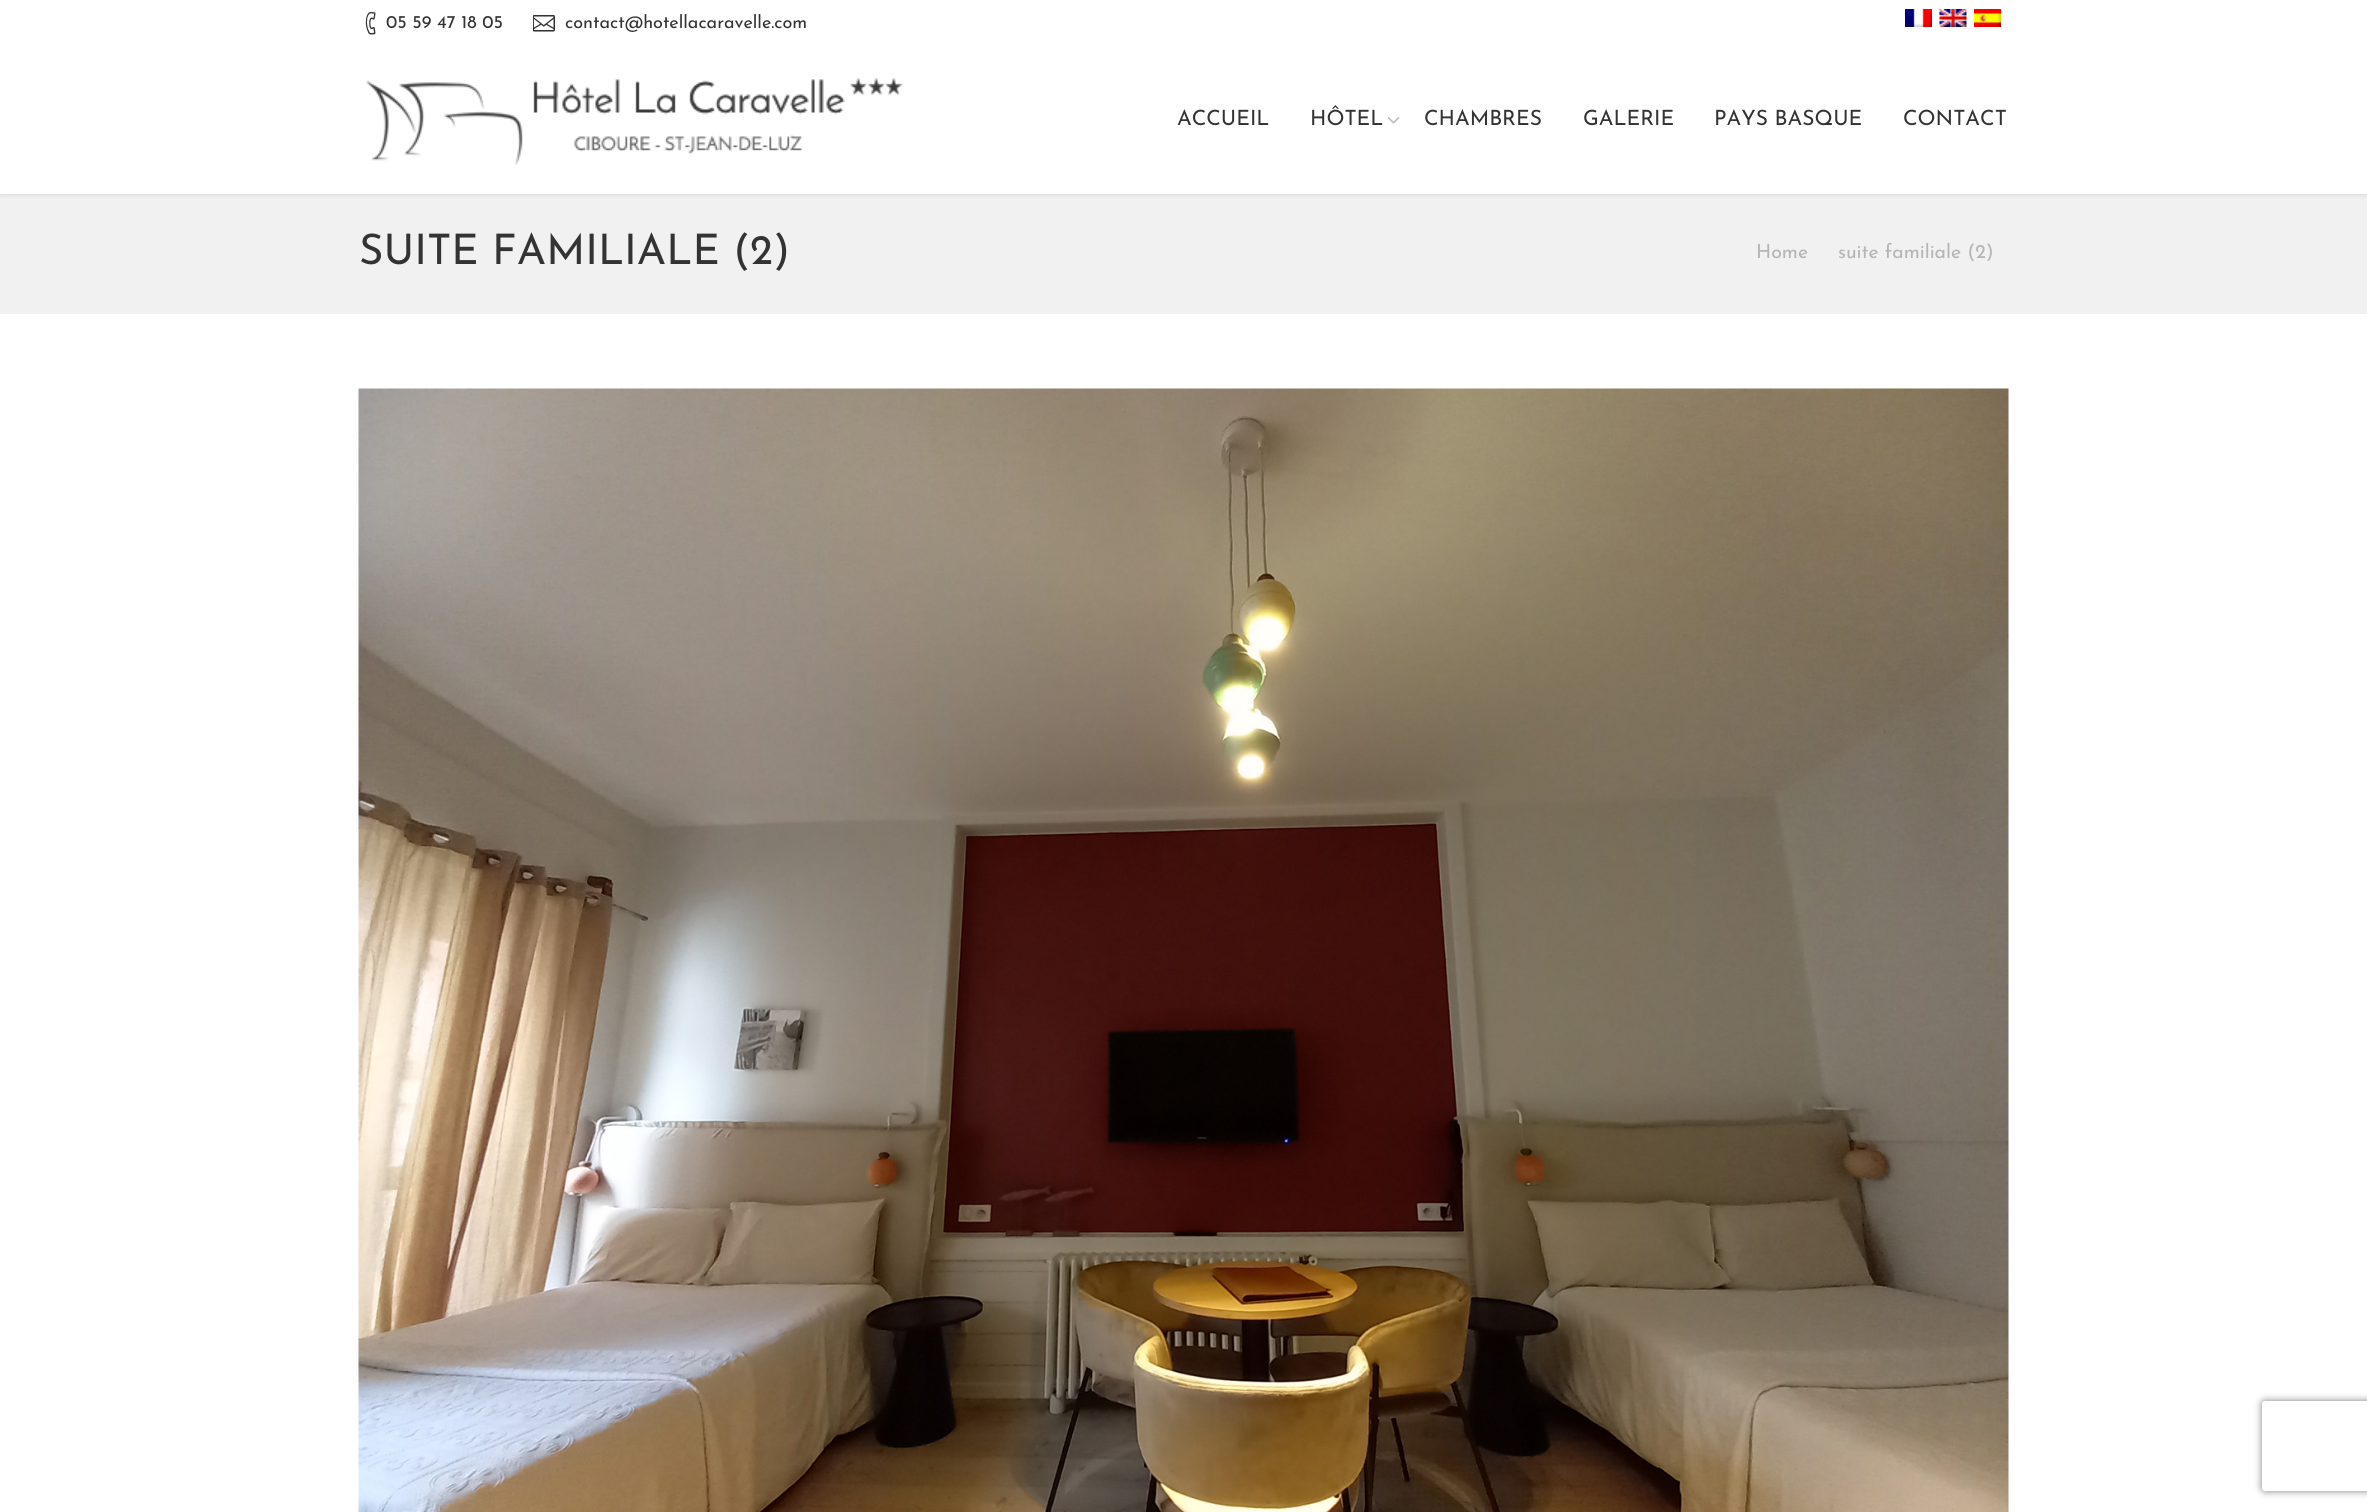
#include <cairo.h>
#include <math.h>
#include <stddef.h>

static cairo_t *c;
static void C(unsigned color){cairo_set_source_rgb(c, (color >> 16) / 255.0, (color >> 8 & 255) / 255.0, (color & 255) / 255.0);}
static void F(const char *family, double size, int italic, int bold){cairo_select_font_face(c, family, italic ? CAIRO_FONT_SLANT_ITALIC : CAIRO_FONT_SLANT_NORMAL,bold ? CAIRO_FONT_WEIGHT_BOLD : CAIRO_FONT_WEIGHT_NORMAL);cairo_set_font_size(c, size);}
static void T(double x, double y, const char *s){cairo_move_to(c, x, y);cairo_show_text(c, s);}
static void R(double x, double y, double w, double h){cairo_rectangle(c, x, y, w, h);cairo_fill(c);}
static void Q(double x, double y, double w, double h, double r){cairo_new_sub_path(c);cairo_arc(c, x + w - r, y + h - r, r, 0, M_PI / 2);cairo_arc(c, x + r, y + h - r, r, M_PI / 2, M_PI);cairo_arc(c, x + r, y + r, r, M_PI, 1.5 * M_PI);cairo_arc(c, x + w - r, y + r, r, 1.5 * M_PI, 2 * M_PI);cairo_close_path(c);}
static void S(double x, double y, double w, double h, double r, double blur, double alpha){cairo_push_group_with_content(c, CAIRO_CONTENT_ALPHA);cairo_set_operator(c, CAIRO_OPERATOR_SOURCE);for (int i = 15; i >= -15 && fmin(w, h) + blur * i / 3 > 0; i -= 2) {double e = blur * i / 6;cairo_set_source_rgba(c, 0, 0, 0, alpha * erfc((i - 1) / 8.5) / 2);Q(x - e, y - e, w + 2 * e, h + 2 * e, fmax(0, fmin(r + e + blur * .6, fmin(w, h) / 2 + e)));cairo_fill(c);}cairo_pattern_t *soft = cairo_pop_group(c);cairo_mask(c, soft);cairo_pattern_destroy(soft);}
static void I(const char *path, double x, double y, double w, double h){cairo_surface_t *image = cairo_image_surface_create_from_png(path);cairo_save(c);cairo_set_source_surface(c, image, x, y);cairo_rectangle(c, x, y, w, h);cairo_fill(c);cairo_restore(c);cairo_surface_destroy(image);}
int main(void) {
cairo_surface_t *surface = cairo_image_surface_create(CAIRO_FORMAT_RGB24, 2367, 1512);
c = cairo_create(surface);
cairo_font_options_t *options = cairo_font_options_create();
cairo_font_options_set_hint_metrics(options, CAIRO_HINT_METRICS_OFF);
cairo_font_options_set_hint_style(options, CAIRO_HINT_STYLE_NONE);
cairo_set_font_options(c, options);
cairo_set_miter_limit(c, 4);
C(0xffffff);
cairo_paint(c);
C(0xf1f1f1);
R(0,194,2367,120);
C(0x000000);
S(0,0,2367,194,0,3,.15);
C(0xffffff);
R(0,0,2367,194);
I("1.png",365,12,11,23);
F("Josefin Sans",18,0,0);
C(0x333333);
T(386,28,"05 59 47 18 05");
I("2.png",533,15,22,17);
T(565,28,"contact@hotellacaravelle.com");
I("3.png",1905,9,27,18);
I("4.png",1939,9,28,18);
I("5.png",1974,9,27,18);
I("6.png",366,77,537,88);
F("Josefin Sans",21,0,0);
T(1177,125,"ACCUEIL");
T(1310,125,"HÔTEL");
I("7.png",1388,117,12,7);
T(1424,125,"CHAMBRES");
T(1583,125,"GALERIE");
T(1714,125,"PAYS BASQUE");
T(1903,125,"CONTACT");
F("Josefin Sans",42,0,0);
T(359,264,"SUITE FAMILIALE (2)");
F("Josefin Sans",19.5,0,0);
C(0xb5b5b5);
T(1756,258,"Home");
T(1838,258,"suite familiale (2)");
I("8.png",358,388,1651,1124);
cairo_save(c);
cairo_set_fill_rule(c,CAIRO_FILL_RULE_EVEN_ODD);
cairo_new_path(c);
cairo_move_to(c,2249,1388);
cairo_line_to(c,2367,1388);
cairo_line_to(c,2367,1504);
cairo_line_to(c,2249,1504);
cairo_close_path(c);
cairo_move_to(c,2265,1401);
cairo_line_to(c,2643,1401);
cairo_curve_to(c,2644.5,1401,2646,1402.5,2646,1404);
cairo_line_to(c,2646,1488);
cairo_curve_to(c,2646,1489.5,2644.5,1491,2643,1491);
cairo_line_to(c,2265,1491);
cairo_curve_to(c,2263.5,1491,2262,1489.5,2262,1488);
cairo_line_to(c,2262,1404);
cairo_curve_to(c,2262,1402.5,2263.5,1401,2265,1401);
cairo_close_path(c);
cairo_clip(c);
C(0x808080);
S(2262,1401,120,90,3,4,1);
cairo_restore(c);
cairo_surface_write_to_png(surface, "o.png");
cairo_font_options_destroy(options);
cairo_destroy(c);
cairo_surface_destroy(surface);
return 0;
}
